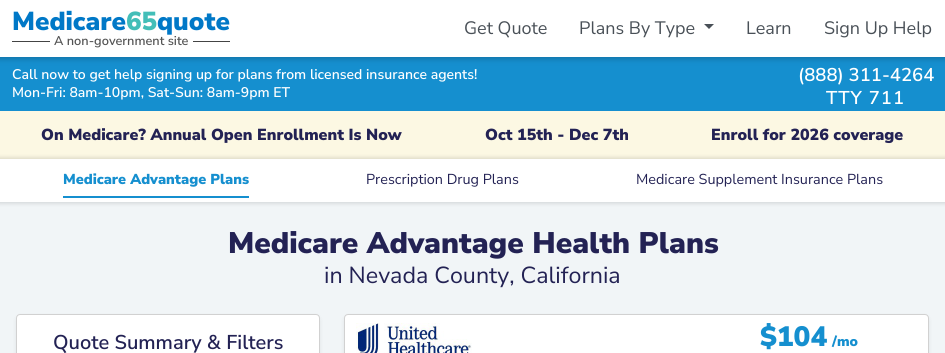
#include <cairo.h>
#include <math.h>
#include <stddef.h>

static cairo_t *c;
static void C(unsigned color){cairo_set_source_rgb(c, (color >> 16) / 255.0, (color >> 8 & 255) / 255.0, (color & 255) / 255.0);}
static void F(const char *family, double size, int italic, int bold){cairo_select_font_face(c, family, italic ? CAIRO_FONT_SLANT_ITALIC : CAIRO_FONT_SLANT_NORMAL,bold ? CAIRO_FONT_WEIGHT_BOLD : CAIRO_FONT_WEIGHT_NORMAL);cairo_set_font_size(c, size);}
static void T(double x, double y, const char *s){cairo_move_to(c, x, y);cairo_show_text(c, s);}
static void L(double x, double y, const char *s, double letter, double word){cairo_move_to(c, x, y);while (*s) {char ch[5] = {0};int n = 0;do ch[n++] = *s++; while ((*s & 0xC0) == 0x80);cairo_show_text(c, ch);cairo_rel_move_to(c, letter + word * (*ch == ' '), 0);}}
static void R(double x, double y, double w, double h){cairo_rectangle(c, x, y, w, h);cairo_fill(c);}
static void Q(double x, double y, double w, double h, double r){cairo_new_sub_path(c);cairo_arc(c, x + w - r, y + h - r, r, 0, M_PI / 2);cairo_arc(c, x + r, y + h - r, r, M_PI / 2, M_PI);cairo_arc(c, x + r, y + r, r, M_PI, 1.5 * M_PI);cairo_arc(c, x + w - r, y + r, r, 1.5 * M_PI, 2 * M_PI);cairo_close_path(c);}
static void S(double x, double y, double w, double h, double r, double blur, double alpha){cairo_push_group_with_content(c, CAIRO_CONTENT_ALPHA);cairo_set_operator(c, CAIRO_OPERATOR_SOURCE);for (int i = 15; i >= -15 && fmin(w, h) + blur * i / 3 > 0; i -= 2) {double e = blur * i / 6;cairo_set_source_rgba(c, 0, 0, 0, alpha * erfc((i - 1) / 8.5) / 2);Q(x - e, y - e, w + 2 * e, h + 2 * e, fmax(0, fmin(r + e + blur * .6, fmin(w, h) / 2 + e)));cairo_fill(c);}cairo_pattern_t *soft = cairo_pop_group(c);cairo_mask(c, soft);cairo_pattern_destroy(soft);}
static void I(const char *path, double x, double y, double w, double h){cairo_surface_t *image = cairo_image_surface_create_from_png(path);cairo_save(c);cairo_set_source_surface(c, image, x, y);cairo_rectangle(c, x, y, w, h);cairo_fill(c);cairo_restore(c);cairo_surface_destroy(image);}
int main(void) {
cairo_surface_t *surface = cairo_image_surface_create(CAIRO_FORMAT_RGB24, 945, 353);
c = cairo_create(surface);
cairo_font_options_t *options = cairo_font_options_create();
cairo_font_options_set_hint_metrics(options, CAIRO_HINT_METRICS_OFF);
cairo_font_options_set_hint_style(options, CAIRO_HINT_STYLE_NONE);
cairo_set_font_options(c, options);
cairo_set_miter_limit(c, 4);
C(0xf1f5f7);
cairo_paint(c);
C(0x158fcf);
R(0,57,945,54);
C(0x000000);
S(-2,-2,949,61,0,3,.2);
C(0xffffff);
R(0,0,945,57);
F("Nunito Sans Black",26,0,0);
C(0x0078c7);
T(12,30,"Medicare");
C(0x43beb8);
T(126,30,"65");
C(0x0078c7);
T(157,30,"quote");
C(0x444444);
R(12,41,38,1);
F("Nunito Sans SemiBold",12.75,0,0);
C(0x545454);
T(54,45,"A non-government site");
C(0x444444);
R(193,41,37,1);
F("Nunito Sans",18,0,0);
C(0x495057);
T(464,34,"Get Quote");
T(579,34,"Plans By Type");
cairo_new_path(c);
cairo_move_to(c,704,24);
cairo_line_to(c,714,24);
cairo_line_to(c,709,29);
cairo_close_path(c);
cairo_fill(c);
T(746,34,"Learn");
T(824,34,"Sign Up Help");
F("Nunito Sans SemiBold",14,0,0);
C(0xffffff);
T(12,79,"Call now to get help signing up for plans from licensed insurance agents!");
T(12,97,"Mon-Fri: 8am-10pm, Sat-Sun: 8am-9pm ET");
F("Nunito Sans SemiBold",18.5,0,0);
T(798,81,"(888) 311-4264");
L(826,104,"TTY 711",1,0);
C(0xfcf8e3);
R(0,111,945,48);
F("Nunito Sans Black",16,0,0);
C(0x232254);
T(41,140,"On Medicare? Annual Open Enrollment Is Now");
T(485,140,"Oct 15th - Dec 7th");
T(711,140,"Enroll for 2026 coverage");
C(0x000000);
S(-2,157,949,47,0,1.5,.1);
C(0xffffff);
R(0,159,945,43);
C(0x158fcf);
R(63,196,186,2);
F("Nunito Sans Black",14.4,0,0);
T(63,184,"Medicare Advantage Plans");
F("Nunito Sans",14.4,0,0);
C(0x232254);
T(366,184,"Prescription Drug Plans");
T(636,184,"Medicare Supplement Insurance Plans");
F("Nunito Sans Black",29.75,0,0);
T(228,253,"Medicare Advantage Health Plans");
F("Nunito Sans",23.25,0,0);
T(324,283,"in Nevada County, California");
C(0x000000);
S(16,316,304,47,4,2,.07);
C(0xffffff);
Q(16,314,304,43,4);
cairo_fill(c);
Q(16.5,314.5,303,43,3.5);
cairo_set_source_rgba(c,0,0,0,0.18);
cairo_set_line_width(c,1);
cairo_stroke(c);
F("Nunito Sans SemiBold",20,0,0);
C(0x232254);
T(53,349,"Quote Summary & Filters");
C(0x000000);
S(344,316,585,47,4,2,.07);
C(0xffffff);
Q(344,314,585,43,4);
cairo_fill(c);
Q(344.5,314.5,584,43,3.5);
cairo_set_source_rgba(c,0,0,0,0.18);
cairo_stroke(c);
I("1.png",356,323,116,30);
F("Nunito Sans Black",28,0,0);
C(0x158fcf);
T(760,346,"$104");
F("Nunito Sans Black",14,0,0);
T(832,346,"/mo");
cairo_surface_write_to_png(surface, "o.png");
cairo_font_options_destroy(options);
cairo_destroy(c);
cairo_surface_destroy(surface);
return 0;
}
